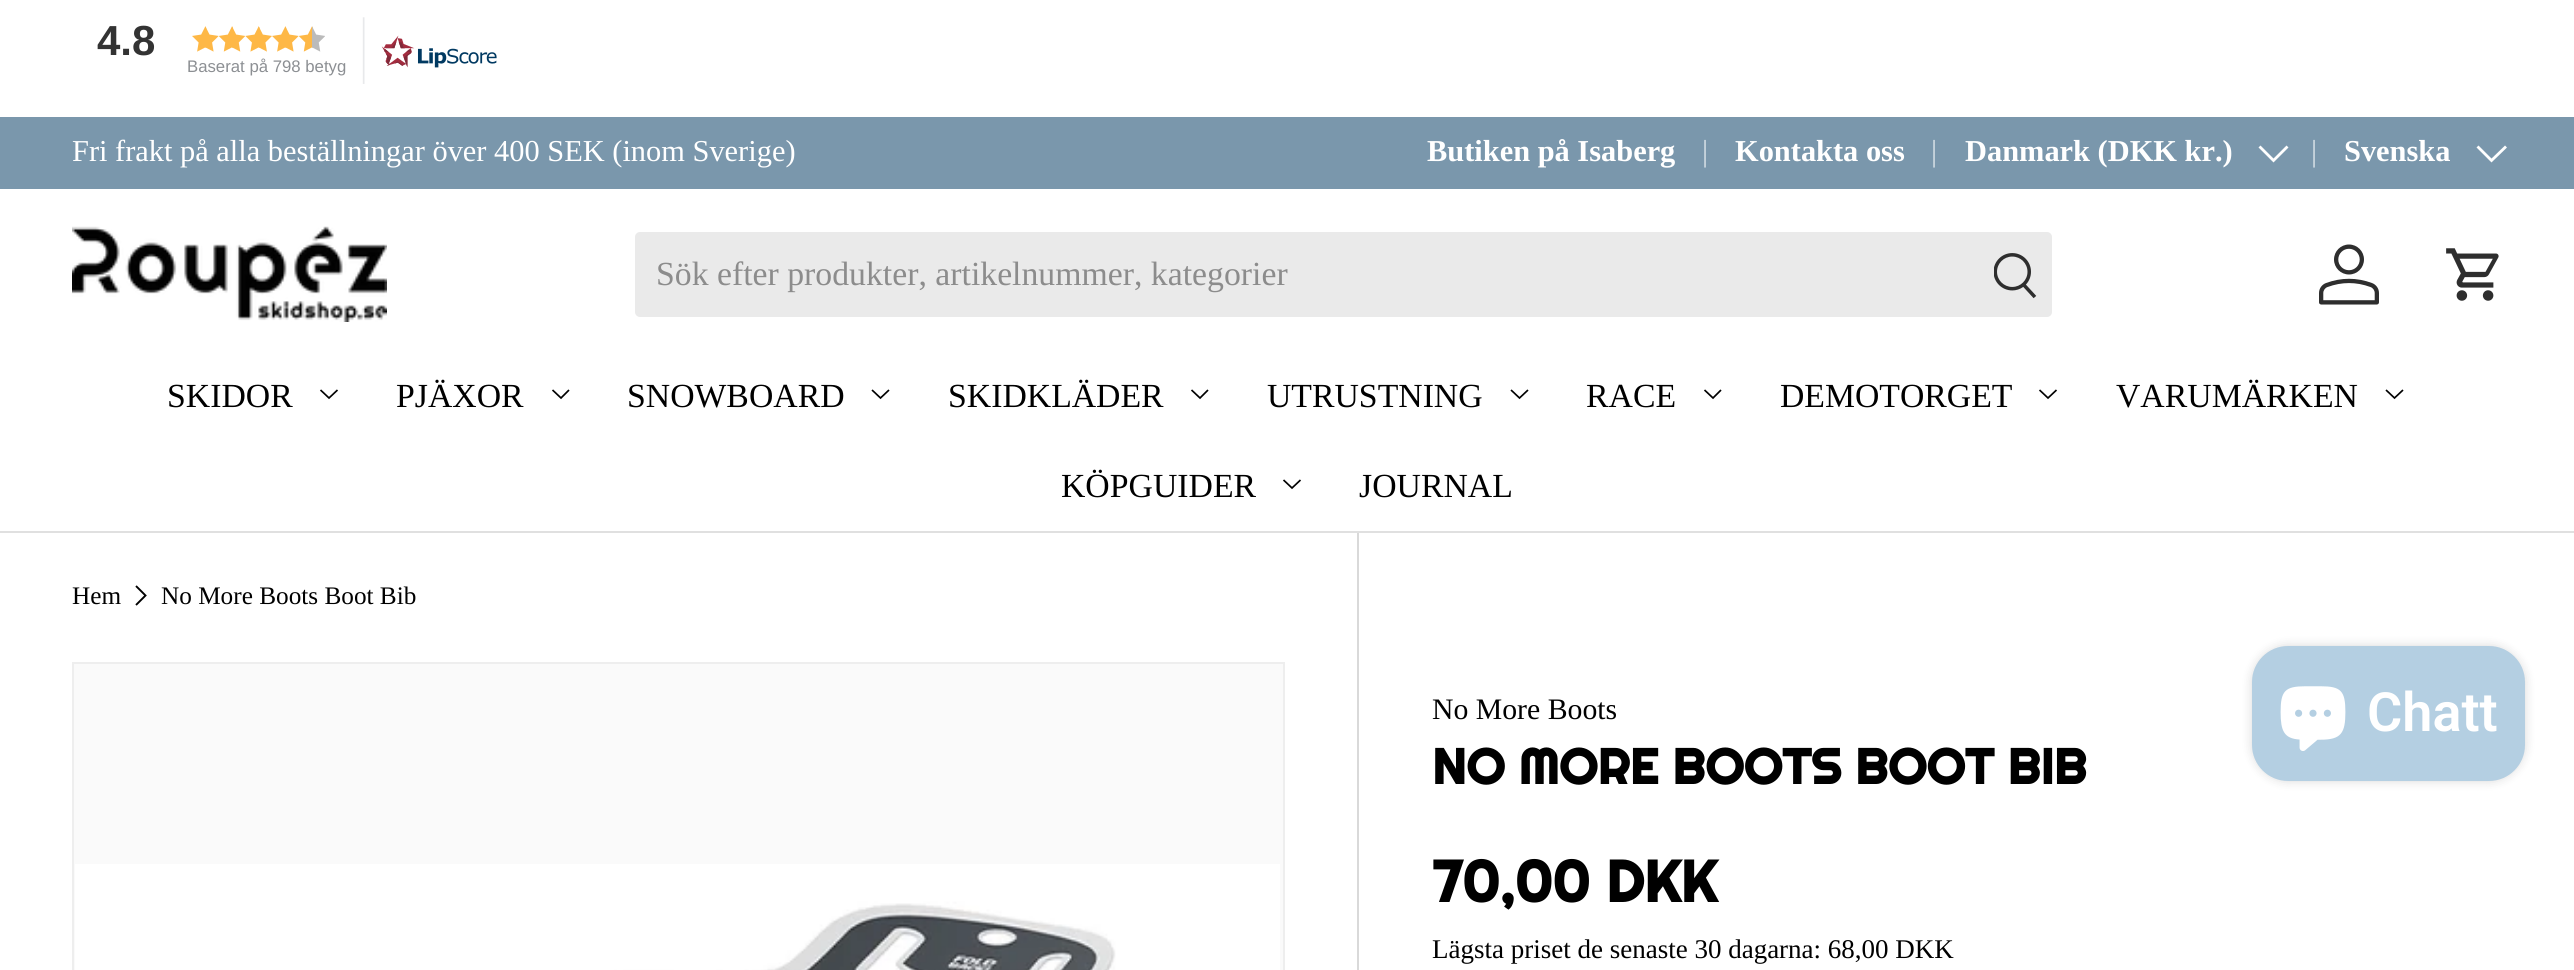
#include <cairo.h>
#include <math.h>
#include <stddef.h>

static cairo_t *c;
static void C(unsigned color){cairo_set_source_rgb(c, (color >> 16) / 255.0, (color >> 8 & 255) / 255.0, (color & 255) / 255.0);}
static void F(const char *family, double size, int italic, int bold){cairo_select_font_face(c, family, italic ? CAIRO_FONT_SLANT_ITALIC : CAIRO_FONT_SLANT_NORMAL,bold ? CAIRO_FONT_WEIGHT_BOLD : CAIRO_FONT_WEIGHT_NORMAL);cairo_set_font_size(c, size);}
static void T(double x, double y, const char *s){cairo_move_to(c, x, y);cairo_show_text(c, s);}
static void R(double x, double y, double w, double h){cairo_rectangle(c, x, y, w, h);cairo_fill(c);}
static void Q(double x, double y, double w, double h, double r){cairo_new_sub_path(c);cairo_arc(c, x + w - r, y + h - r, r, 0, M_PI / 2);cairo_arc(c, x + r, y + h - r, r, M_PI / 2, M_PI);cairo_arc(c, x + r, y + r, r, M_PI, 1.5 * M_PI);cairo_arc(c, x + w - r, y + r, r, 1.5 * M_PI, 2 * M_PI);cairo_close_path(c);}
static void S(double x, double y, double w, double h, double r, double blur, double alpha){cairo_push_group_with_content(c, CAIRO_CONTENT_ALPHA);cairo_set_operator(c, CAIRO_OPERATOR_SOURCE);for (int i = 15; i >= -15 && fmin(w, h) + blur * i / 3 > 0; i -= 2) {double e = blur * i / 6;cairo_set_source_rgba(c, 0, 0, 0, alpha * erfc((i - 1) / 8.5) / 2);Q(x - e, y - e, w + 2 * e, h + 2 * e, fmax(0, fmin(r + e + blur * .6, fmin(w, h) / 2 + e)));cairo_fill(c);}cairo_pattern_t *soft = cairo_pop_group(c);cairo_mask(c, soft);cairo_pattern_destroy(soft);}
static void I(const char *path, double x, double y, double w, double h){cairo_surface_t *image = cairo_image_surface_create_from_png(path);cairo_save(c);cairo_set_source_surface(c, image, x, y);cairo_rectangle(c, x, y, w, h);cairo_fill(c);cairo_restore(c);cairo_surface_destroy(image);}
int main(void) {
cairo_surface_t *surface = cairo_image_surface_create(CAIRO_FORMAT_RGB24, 2574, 970);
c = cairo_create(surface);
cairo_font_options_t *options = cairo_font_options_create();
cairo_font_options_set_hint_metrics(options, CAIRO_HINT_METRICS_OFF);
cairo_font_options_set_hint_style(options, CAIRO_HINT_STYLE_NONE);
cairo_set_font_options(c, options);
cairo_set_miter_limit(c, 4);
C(0xffffff);
cairo_paint(c);
F("Liberation Sans",42,0,1);
C(0x333333);
T(97,55,"4.8");
I("1.png",192,17,305,67);
F("Liberation Sans",16.75,0,0);
C(0x8c8f93);
T(187,72,"Baserat på 798 betyg");
C(0x7a97ac);
R(0,117,2574,72);
F("Liberation Serif",30.4,0,0);
C(0xffffff);
T(72,161,"Fri frakt på alla beställningar över 400 SEK (inom Sverige)");
F("Liberation Serif",30.4,0,1);
T(1427,161,"Butiken på Isaberg");
F("Liberation Serif",30.4,0,0);
C(0xd7e0e6);
T(1702,161,"|");
F("Liberation Serif",30.4,0,1);
C(0xffffff);
T(1735,161,"Kontakta oss");
F("Liberation Serif",30.4,0,0);
C(0xd7e0e6);
T(1931,161,"|");
F("Liberation Serif",30.4,0,1);
C(0xffffff);
T(1965,161,"Danmark (DKK kr.)");
cairo_new_path(c);
cairo_move_to(c,2287.5,146.5);
cairo_line_to(c,2273.5,160.5);
cairo_line_to(c,2259.5,146.5);
cairo_set_line_width(c,2.8);
cairo_stroke(c);
F("Liberation Serif",30.4,0,0);
C(0xd7e0e6);
T(2311,161,"|");
F("Liberation Serif",30.4,0,1);
C(0xffffff);
T(2344,161,"Svenska");
cairo_new_path(c);
cairo_move_to(c,2506,146.5);
cairo_line_to(c,2491.5,160.5);
cairo_line_to(c,2477.5,146.5);
cairo_stroke(c);
C(0xe0e0e0);
R(0,531,2574,2);
I("2.png",72,226,315,96);
C(0xeaeaea);
Q(635,232,1417,85,5);
cairo_fill(c);
F("Liberation Serif",33.75,0,0);
C(0x8c8c8c);
T(656,285,"Sök efter produkter, artikelnummer, kategorier");
I("3.png",1994,253,43,46);
I("4.png",2319,244,60,61);
I("5.png",2446,248,53,53);
C(0x000000);
T(167,407,"SKIDOR");
cairo_new_path(c);
cairo_move_to(c,337.5,390);
cairo_line_to(c,329,398);
cairo_line_to(c,320.5,390);
cairo_set_line_width(c,1.7);
cairo_stroke(c);
T(396,407,"PJÄXOR");
cairo_new_path(c);
cairo_move_to(c,569,390);
cairo_line_to(c,561,398);
cairo_line_to(c,552.5,390);
cairo_stroke(c);
T(627,407,"SNOWBOARD");
cairo_new_path(c);
cairo_move_to(c,889,390);
cairo_line_to(c,880.5,398);
cairo_line_to(c,872,390);
cairo_stroke(c);
T(948,407,"SKIDKLÄDER");
cairo_new_path(c);
cairo_move_to(c,1208,390);
cairo_line_to(c,1200,398);
cairo_line_to(c,1191.5,390);
cairo_stroke(c);
T(1267,407,"UTRUSTNING");
cairo_new_path(c);
cairo_move_to(c,1528,390);
cairo_line_to(c,1519.5,398);
cairo_line_to(c,1511,390);
cairo_stroke(c);
T(1586,407,"RACE");
cairo_new_path(c);
cairo_move_to(c,1721,390);
cairo_line_to(c,1713,398);
cairo_line_to(c,1704.5,390);
cairo_stroke(c);
T(1780,407,"DEMOTORGET");
cairo_new_path(c);
cairo_move_to(c,2056.5,390);
cairo_line_to(c,2048,398);
cairo_line_to(c,2039.5,390);
cairo_stroke(c);
T(2116,407,"VARUMÄRKEN");
cairo_new_path(c);
cairo_move_to(c,2403,390);
cairo_line_to(c,2394.5,398);
cairo_line_to(c,2386,390);
cairo_stroke(c);
T(1061,497,"KÖPGUIDER");
cairo_new_path(c);
cairo_move_to(c,1300.5,480);
cairo_line_to(c,1292,488);
cairo_line_to(c,1283.5,480);
cairo_stroke(c);
T(1359,497,"JOURNAL");
F("Liberation Serif",25.25,0,0);
T(72,604,"Hem");
cairo_new_path(c);
cairo_move_to(c,136,586);
cairo_line_to(c,145.5,595.5);
cairo_line_to(c,136,605);
cairo_set_line_width(c,1.9);
cairo_stroke(c);
T(161,604,"No More Boots Boot Bib");
cairo_rectangle(c,73,663,1211,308);
C(0xeeeeee);
cairo_set_line_width(c,2);
cairo_stroke(c);
C(0xfafafa);
R(74,664,1209,306);
I("6.png",75,864,1205,106);
C(0xd9d9d9);
R(1357,533,2,437);
F("Liberation Serif",29.75,0,0);
C(0x000000);
T(1432,719,"No More Boots");
F("Righteous",49.5,0,1);
T(1432,784,"NO MORE BOOTS BOOT BIB");
F("Righteous",58.25,0,1);
T(1432,902,"70,00 DKK");
F("Liberation Serif",27,0,0);
T(1432,958,"Lägsta priset de senaste 30 dagarna: 68,00 DKK");
C(0x000000);
S(2252,646,273,135,36,5.5,.15);
C(0xb4cfe2);
Q(2252,646,273,135,36);
cairo_fill(c);
I("7.png",2280,686,66,65);
F("Roboto SemiBold",54,0,0);
C(0xffffff);
T(2367,731,"Chatt");
cairo_surface_write_to_png(surface, "o.png");
cairo_font_options_destroy(options);
cairo_destroy(c);
cairo_surface_destroy(surface);
return 0;
}
